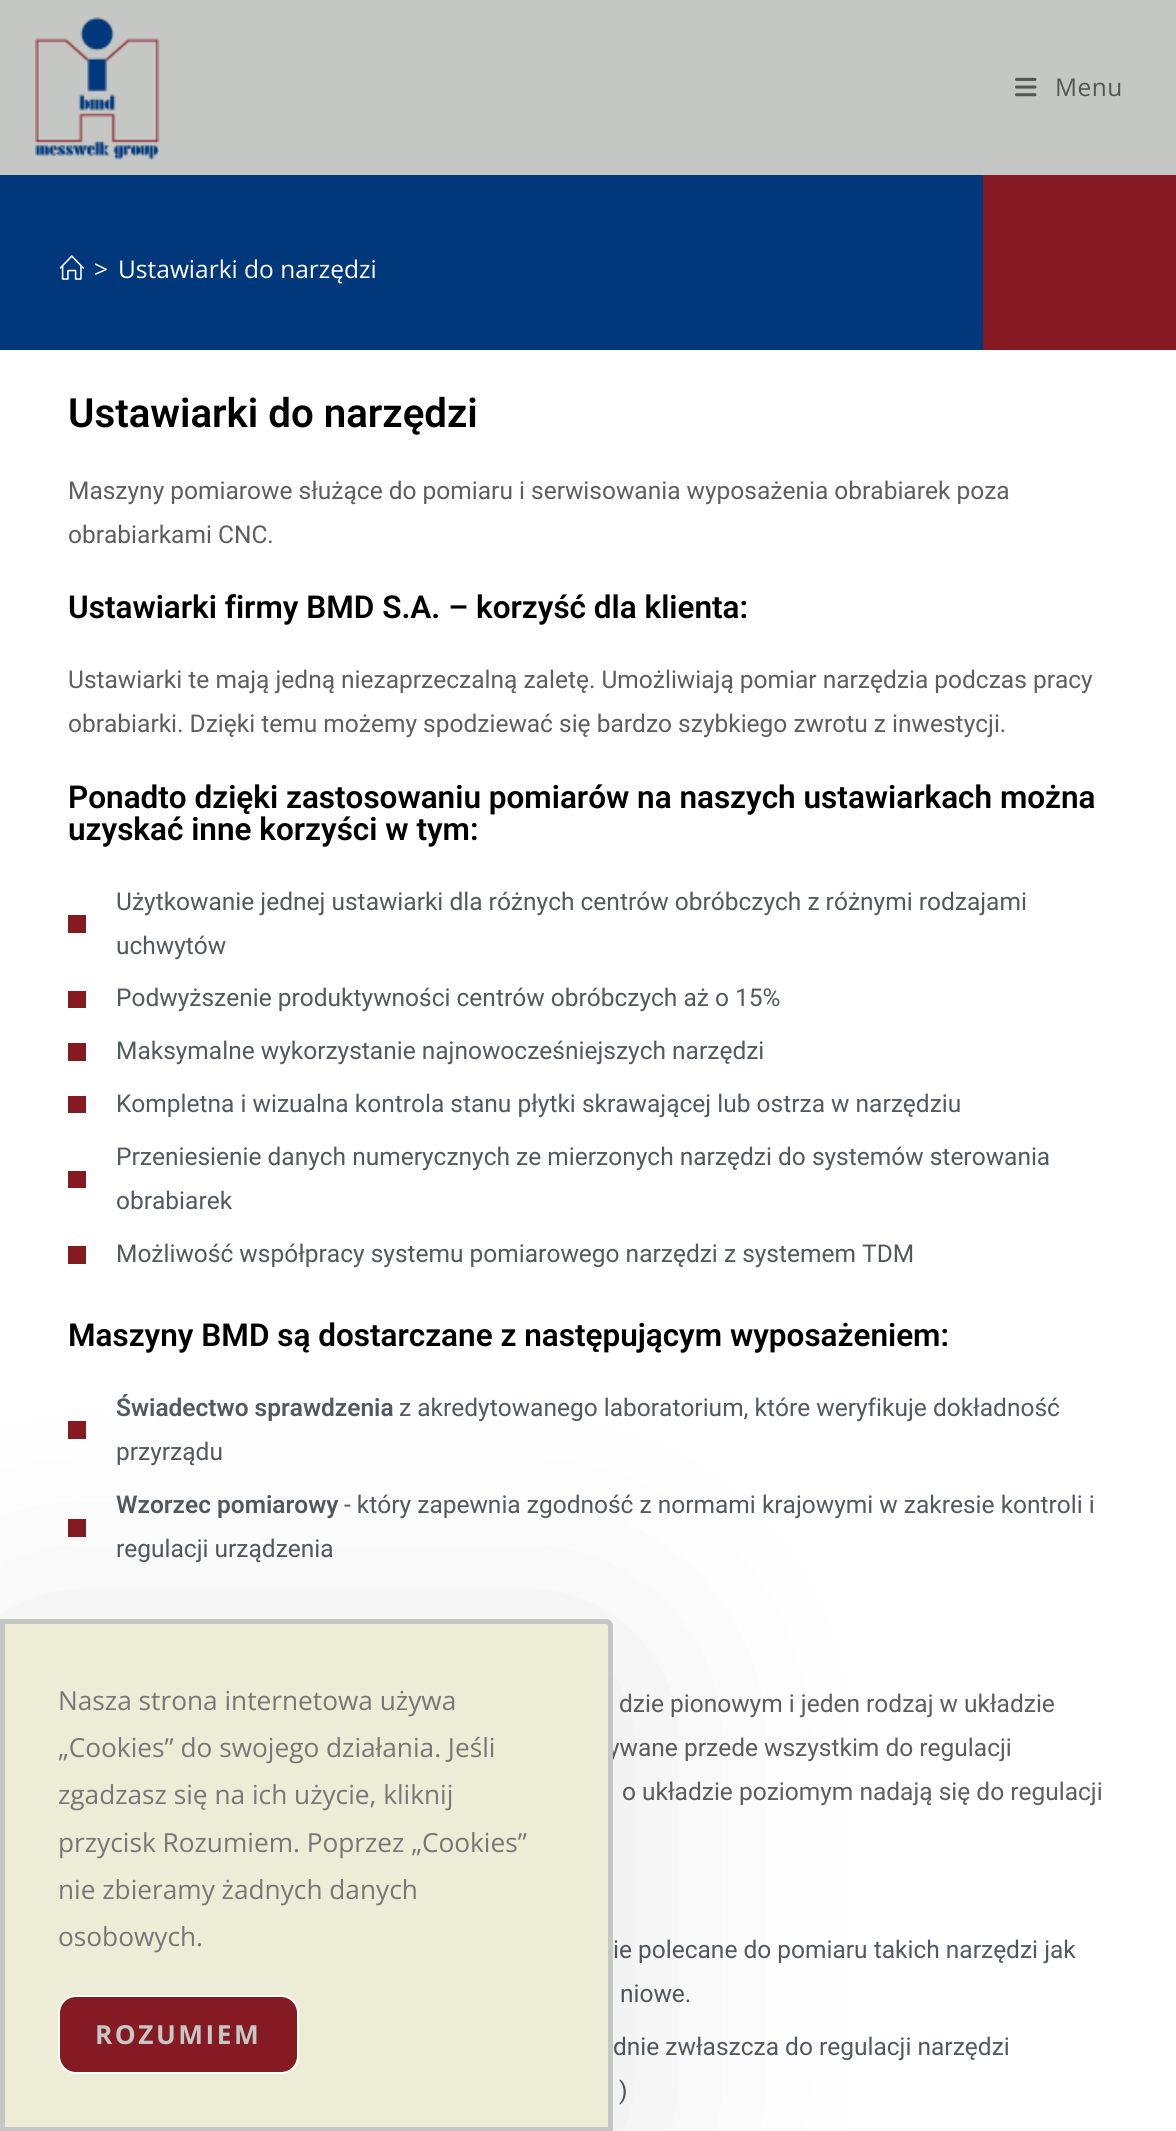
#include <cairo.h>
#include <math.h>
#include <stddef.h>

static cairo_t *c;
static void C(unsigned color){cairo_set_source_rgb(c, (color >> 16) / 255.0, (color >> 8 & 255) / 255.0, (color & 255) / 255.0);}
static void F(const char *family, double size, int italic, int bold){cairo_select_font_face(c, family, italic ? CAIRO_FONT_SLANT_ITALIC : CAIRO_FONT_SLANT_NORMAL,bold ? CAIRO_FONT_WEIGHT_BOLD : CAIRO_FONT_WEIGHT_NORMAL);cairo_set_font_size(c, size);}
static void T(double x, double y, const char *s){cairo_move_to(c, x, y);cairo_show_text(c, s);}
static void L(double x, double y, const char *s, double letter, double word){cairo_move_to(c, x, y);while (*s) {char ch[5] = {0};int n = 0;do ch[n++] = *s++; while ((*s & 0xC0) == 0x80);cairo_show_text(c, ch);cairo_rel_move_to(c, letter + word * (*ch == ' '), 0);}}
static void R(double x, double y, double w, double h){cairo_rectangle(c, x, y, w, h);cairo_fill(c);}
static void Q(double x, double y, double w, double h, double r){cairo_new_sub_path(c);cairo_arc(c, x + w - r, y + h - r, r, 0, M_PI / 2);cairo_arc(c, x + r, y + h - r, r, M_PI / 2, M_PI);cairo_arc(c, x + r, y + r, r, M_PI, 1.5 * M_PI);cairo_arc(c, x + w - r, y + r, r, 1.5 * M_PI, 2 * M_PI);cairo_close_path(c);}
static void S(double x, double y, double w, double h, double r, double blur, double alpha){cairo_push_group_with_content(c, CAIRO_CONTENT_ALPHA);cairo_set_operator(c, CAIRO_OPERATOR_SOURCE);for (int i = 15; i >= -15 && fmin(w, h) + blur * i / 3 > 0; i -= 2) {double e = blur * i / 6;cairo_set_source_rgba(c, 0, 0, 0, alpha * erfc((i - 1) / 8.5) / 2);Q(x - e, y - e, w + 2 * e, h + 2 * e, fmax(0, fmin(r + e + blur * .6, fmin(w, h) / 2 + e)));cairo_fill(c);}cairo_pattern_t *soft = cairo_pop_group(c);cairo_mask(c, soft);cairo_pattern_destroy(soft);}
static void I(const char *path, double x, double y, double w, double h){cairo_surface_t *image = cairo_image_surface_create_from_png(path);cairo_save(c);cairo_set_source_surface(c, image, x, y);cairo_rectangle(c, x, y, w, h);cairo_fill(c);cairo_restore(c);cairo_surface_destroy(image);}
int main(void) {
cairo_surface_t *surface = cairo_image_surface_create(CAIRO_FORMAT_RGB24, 1176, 2131);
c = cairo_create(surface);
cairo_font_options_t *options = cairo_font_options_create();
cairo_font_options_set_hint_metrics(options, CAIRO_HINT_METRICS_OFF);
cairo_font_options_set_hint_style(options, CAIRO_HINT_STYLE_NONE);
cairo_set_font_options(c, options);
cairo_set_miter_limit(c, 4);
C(0xffffff);
cairo_paint(c);
C(0xc5c7c4);
R(0,0,1176,175);
I("1.png",35,17,125,143);
I("2.png",1015,77,22,20);
F("Open Sans",24.5,0,0);
C(0x555555);
L(1055,96,"Menu",.5,0);
C(0x00387b);
R(0,175,983,175);
C(0x861a22);
R(983,175,193,175);
I("3.png",60,255,24,25);
C(0xffffff);
T(94,278,">");
T(118,278,"Ustawiarki do narzędzi");
F("Roboto SemiBold",40.25,0,0);
C(0x000000);
T(68,427,"Ustawiarki do narzędzi");
F("Roboto",24.5,0,0);
C(0x5e5e5e);
T(68,499,"Maszyny pomiarowe służące do pomiaru i serwisowania wyposażenia obrabiarek poza");
T(68,543,"obrabiarkami CNC.");
F("Roboto SemiBold",31.5,0,0);
C(0x000000);
T(68,618,"Ustawiarki firmy BMD S.A. – korzyść dla klienta:");
F("Roboto",24.5,0,0);
C(0x5e5e5e);
T(68,688,"Ustawiarki te mają jedną niezaprzeczalną zaletę. Umożliwiają pomiar narzędzia podczas pracy");
T(68,732,"obrabiarki. Dzięki temu możemy spodziewać się bardzo szybkiego zwrotu z inwestycji.");
F("Roboto SemiBold",31.5,0,0);
C(0x000000);
T(68,808,"Ponadto dzięki zastosowaniu pomiarów na naszych ustawiarkach można");
T(68,840,"uzyskać inne korzyści w tym:");
C(0x861a22);
R(68,915,18,18);
F("Roboto",24.5,0,0);
C(0x54595f);
T(116,910,"Użytkowanie jednej ustawiarki dla różnych centrów obróbczych z różnymi rodzajami");
T(116,954,"uchwytów");
C(0x861a22);
R(68,991,18,17);
C(0x54595f);
T(116,1006,"Podwyższenie produktywności centrów obróbczych aż o 15%");
C(0x861a22);
R(68,1043,18,18);
C(0x54595f);
T(116,1059,"Maksymalne wykorzystanie najnowocześniejszych narzędzi");
C(0x861a22);
R(68,1096,18,17);
C(0x54595f);
T(116,1112,"Kompletna i wizualna kontrola stanu płytki skrawającej lub ostrza w narzędziu");
C(0x861a22);
R(68,1171,18,17);
C(0x54595f);
T(116,1165,"Przeniesienie danych numerycznych ze mierzonych narzędzi do systemów sterowania");
T(116,1209,"obrabiarek");
C(0x861a22);
R(68,1246,18,18);
C(0x54595f);
T(116,1262,"Możliwość współpracy systemu pomiarowego narzędzi z systemem TDM");
F("Roboto SemiBold",31.5,0,0);
C(0x000000);
T(68,1346,"Maszyny BMD są dostarczane z następującym wyposażeniem:");
C(0x861a22);
R(68,1421,18,18);
F("Roboto SemiBold",24.5,0,0);
C(0x54595f);
T(116,1416,"Świadectwo sprawdzenia");
F("Roboto",24.5,0,0);
T(399,1416,"z akredytowanego laboratorium, które weryfikuje dokładność");
T(116,1460,"przyrządu");
C(0x861a22);
R(68,1519,18,18);
F("Roboto SemiBold",24.5,0,0);
C(0x54595f);
T(116,1513,"Wzorzec pomiarowy");
F("Roboto",24.5,0,0);
T(344,1513,"- który zapewnia zgodność z normami krajowymi w zakresie kontroli i");
T(116,1557,"regulacji urządzenia");
C(0x5e5e5e);
T(619,1712,"dzie pionowym i jeden rodzaj w układzie");
T(608,1756,"ywane przede wszystkim do regulacji");
T(622,1800,"o układzie poziomym nadają się do regulacji");
C(0x54595f);
T(613,1958,"ie polecane do pomiaru takich narzędzi jak");
T(620,2002,"niowe.");
T(613,2055,"dnie zwłaszcza do regulacji narzędzi");
T(619,2099,")");
C(0x000000);
S(0,1654,613,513,7,131,.1);
C(0xededd7);
cairo_new_path(c);
cairo_move_to(c,2.5,1621.5);
cairo_line_to(c,606,1621.5);
cairo_curve_to(c,608.5,1621.5,610.5,1623.5,610.5,1626);
cairo_line_to(c,610.5,2129.5);
cairo_line_to(c,2.5,2129.5);
cairo_close_path(c);
cairo_fill_preserve(c);
C(0xc5c7c4);
cairo_set_line_width(c,5);
cairo_stroke(c);
F("Open Sans",26.25,0,0);
C(0x777777);
T(58,1710,"Nasza strona internetowa używa");
T(58,1757,"„Cookies” do swojego działania. Jeśli");
T(58,1804,"zgadzasz się na ich użycie, kliknij");
T(58,1852,"przycisk Rozumiem. Poprzez „Cookies”");
T(58,1899,"nie zbieramy żadnych danych");
T(58,1946,"osobowych.");
C(0x861a22);
Q(59,1996,239,77,17);
cairo_fill_preserve(c);
C(0xffffff);
cairo_set_line_width(c,2);
cairo_stroke(c);
F("Open Sans",26.25,0,1);
C(0xc5c7c4);
L(95,2044,"ROZUMIEM",2.5,0);
cairo_surface_write_to_png(surface, "o.png");
cairo_font_options_destroy(options);
cairo_destroy(c);
cairo_surface_destroy(surface);
return 0;
}
